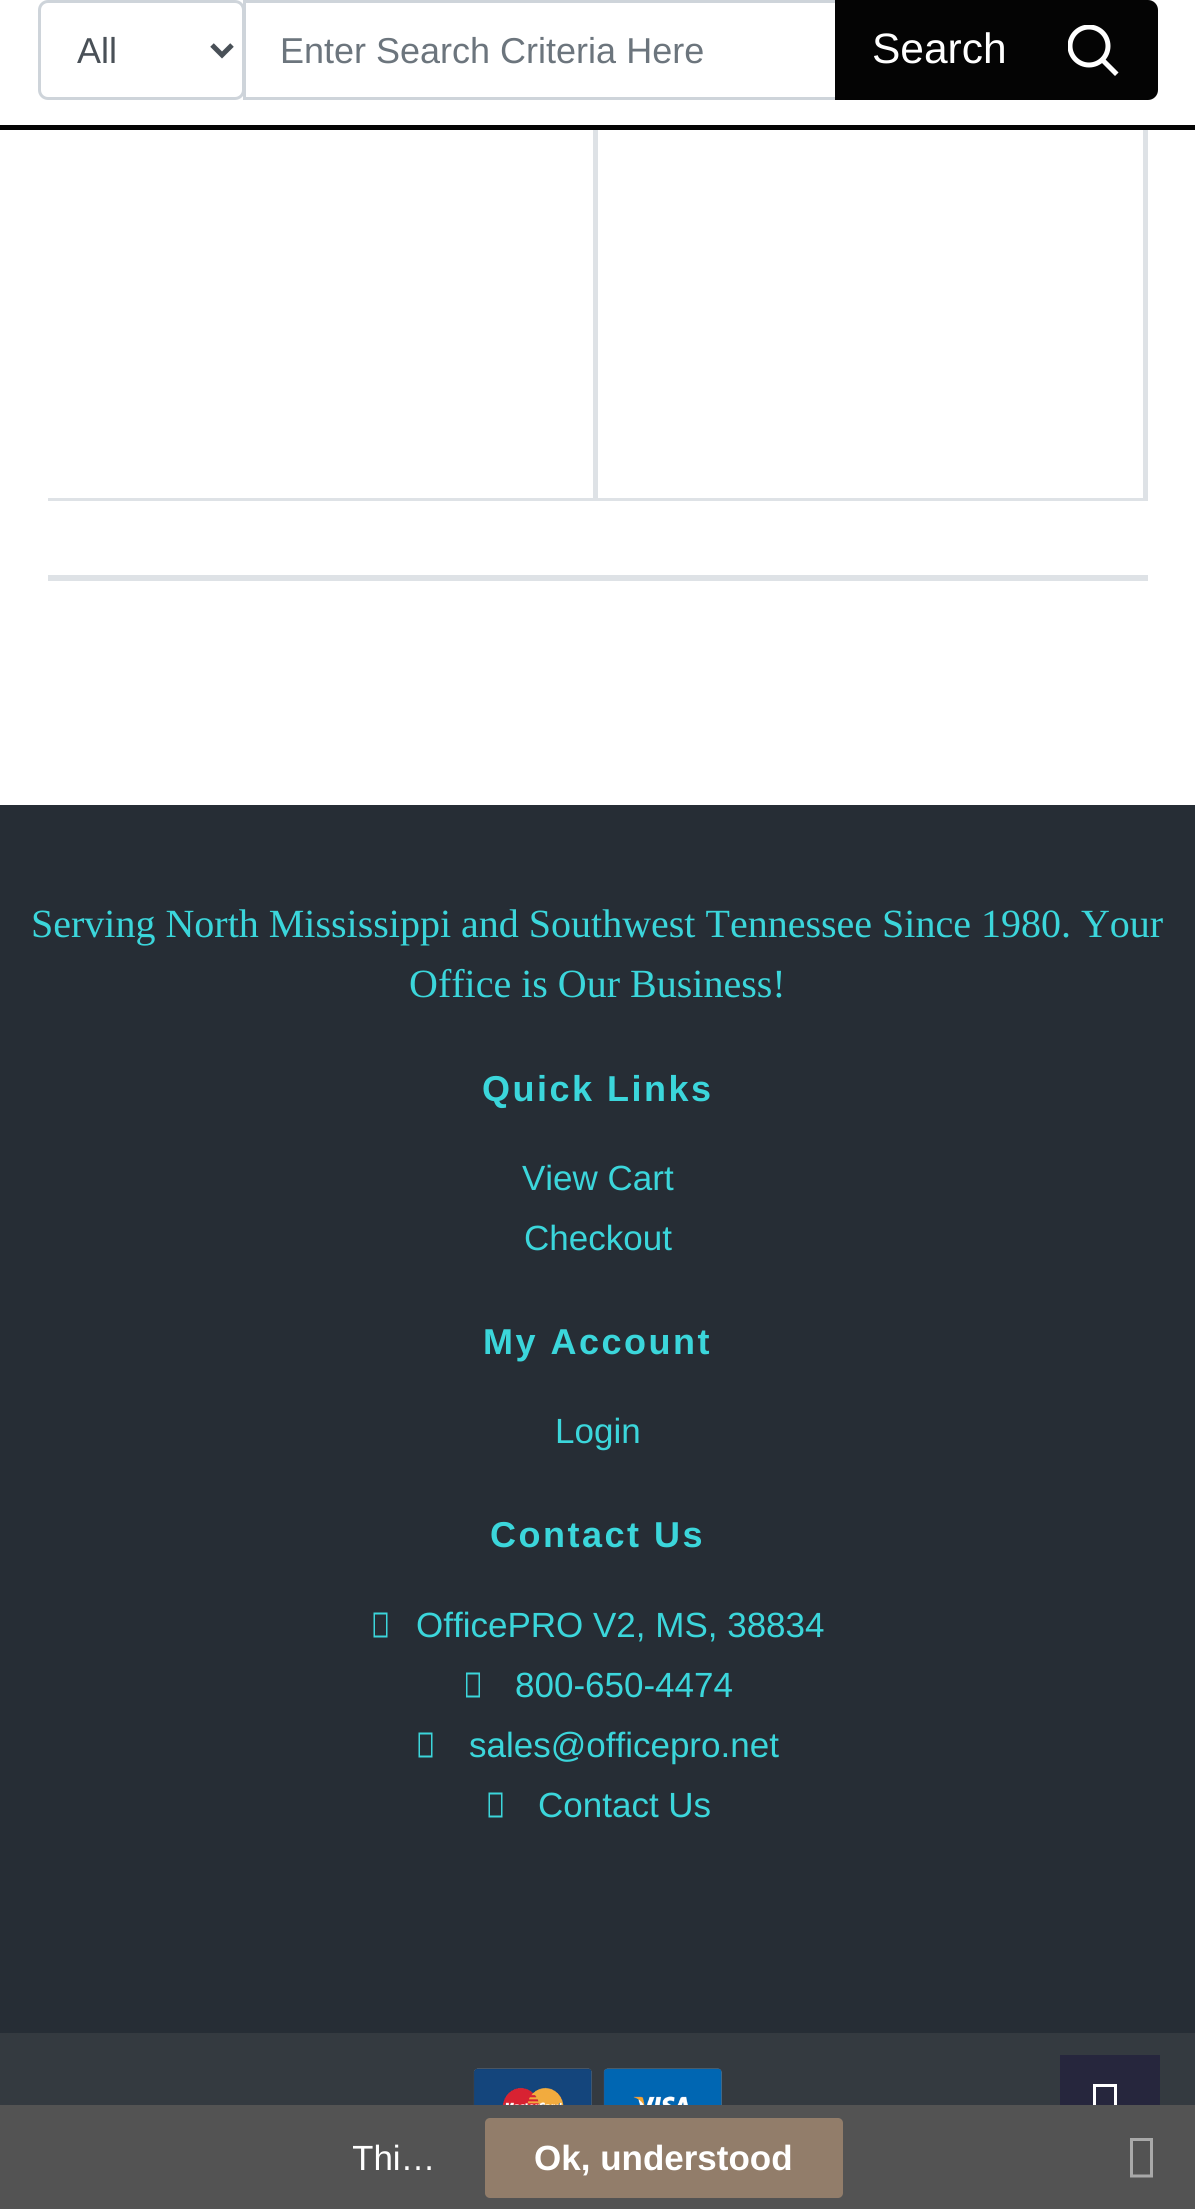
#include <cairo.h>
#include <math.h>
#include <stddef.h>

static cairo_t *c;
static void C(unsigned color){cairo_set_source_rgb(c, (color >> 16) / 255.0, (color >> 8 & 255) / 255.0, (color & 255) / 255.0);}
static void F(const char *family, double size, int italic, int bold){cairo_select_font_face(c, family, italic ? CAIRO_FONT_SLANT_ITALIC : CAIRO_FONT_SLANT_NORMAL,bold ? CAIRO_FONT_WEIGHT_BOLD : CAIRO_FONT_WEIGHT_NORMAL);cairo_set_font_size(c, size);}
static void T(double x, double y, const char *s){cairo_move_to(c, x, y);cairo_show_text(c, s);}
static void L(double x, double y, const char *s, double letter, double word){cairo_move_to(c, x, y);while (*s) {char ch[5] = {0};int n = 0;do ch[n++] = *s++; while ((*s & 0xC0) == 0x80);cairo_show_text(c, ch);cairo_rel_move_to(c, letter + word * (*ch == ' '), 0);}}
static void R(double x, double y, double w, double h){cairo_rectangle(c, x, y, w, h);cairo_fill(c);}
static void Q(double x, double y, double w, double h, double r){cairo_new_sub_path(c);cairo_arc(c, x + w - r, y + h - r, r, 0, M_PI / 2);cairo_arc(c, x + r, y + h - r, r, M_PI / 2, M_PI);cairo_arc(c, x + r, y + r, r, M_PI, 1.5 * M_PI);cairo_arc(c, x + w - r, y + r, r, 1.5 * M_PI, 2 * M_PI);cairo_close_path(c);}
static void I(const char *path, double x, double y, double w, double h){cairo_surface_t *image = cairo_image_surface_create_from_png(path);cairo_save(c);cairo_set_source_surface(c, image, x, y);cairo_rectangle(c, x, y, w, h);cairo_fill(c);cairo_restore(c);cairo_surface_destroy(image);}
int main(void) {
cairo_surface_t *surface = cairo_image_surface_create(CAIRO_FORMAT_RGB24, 1195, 2209);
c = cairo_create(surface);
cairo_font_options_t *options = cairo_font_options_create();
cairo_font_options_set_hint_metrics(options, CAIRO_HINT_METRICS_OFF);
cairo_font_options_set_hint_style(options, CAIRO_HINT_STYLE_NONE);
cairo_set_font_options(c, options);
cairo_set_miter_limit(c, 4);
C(0xffffff);
cairo_paint(c);
C(0x040404);
R(0,125,1195,5);
Q(39.5,1.5,204,97,8.5);
C(0xced4da);
cairo_set_line_width(c,3);
cairo_stroke(c);
cairo_new_path(c);
cairo_move_to(c,212,45);
cairo_line_to(c,222,55);
cairo_line_to(c,232,45);
C(0x495057);
cairo_set_line_width(c,5);
cairo_stroke(c);
F("Liberation Sans",36,0,0);
T(77,63,"All");
cairo_rectangle(c,244.5,1.5,592,97);
C(0xced4da);
cairo_set_line_width(c,3);
cairo_stroke(c);
C(0x6c757d);
T(280,63,"Enter Search Criteria Here");
C(0x040404);
cairo_new_path(c);
cairo_move_to(c,835,0);
cairo_line_to(c,1148,0);
cairo_curve_to(c,1153.5,0,1158,4.5,1158,10);
cairo_line_to(c,1158,90);
cairo_curve_to(c,1158,95.5,1153.5,100,1148,100);
cairo_line_to(c,835,100);
cairo_close_path(c);
cairo_fill(c);
F("Liberation Sans",42.5,0,0);
C(0xffffff);
T(872,63,"Search");
cairo_new_path(c);
cairo_move_to(c,1115,72.5);
cairo_line_to(c,1102.5,60);
cairo_set_line_width(c,5);
cairo_set_line_cap(c,CAIRO_LINE_CAP_SQUARE);
cairo_stroke(c);
cairo_save(c);
cairo_rectangle(c,1068,25,55,55);
cairo_clip(c);
cairo_arc(c,1089,46,19,0,2 * M_PI);
cairo_set_line_cap(c,CAIRO_LINE_CAP_BUTT);
cairo_stroke(c);
cairo_restore(c);
C(0xdee2e6);
R(593,130,5,370);
R(48,498,550,3);
R(1143,130,5,370);
R(598,498,550,3);
R(48,575,1100,6);
C(0x262d35);
R(0,805,1195,1228);
F("Liberation Serif",40,0,0);
C(0x3bd6db);
T(31,937,"Serving North Mississippi and Southwest Tennessee Since 1980. Your");
T(409,997,"Office is Our Business!");
F("Liberation Sans",36,0,1);
L(482,1101,"Quick Links",2.5,0);
F("Liberation Sans",35,0,0);
T(522,1190,"View Cart");
T(524,1250,"Checkout");
F("Liberation Sans",36,0,1);
L(483,1354,"My Account",2.5,0);
F("Liberation Sans",35,0,0);
T(555,1443,"Login");
F("Liberation Sans",36,0,1);
L(490,1547,"Contact Us",2.5,0);
cairo_new_path(c);
cairo_move_to(c,373.5,1637.5);
cairo_line_to(c,373.5,1612.5);
cairo_line_to(c,387.5,1612.5);
cairo_line_to(c,387.5,1637.5);
cairo_close_path(c);
cairo_move_to(c,375,1635.5);
cairo_line_to(c,386,1635.5);
cairo_line_to(c,386,1614.5);
cairo_line_to(c,375,1614.5);
cairo_close_path(c);
cairo_fill(c);
F("Liberation Sans",35,0,0);
T(416,1637,"OfficePRO V2, MS, 38834");
cairo_new_path(c);
cairo_move_to(c,466,1697.5);
cairo_line_to(c,466,1672.5);
cairo_line_to(c,480,1672.5);
cairo_line_to(c,480,1697.5);
cairo_close_path(c);
cairo_move_to(c,467.5,1695.5);
cairo_line_to(c,478.5,1695.5);
cairo_line_to(c,478.5,1674.5);
cairo_line_to(c,467.5,1674.5);
cairo_close_path(c);
cairo_fill(c);
T(515,1697,"800-650-4474");
cairo_new_path(c);
cairo_move_to(c,418.5,1757.5);
cairo_line_to(c,418.5,1732.5);
cairo_line_to(c,432.5,1732.5);
cairo_line_to(c,432.5,1757.5);
cairo_close_path(c);
cairo_move_to(c,420,1755.5);
cairo_line_to(c,431,1755.5);
cairo_line_to(c,431,1734.5);
cairo_line_to(c,420,1734.5);
cairo_close_path(c);
cairo_fill(c);
T(469,1757,"sales@officepro.net");
cairo_new_path(c);
cairo_move_to(c,488.5,1817.5);
cairo_line_to(c,488.5,1792.5);
cairo_line_to(c,502.5,1792.5);
cairo_line_to(c,502.5,1817.5);
cairo_close_path(c);
cairo_move_to(c,490,1815.5);
cairo_line_to(c,501,1815.5);
cairo_line_to(c,501,1794.5);
cairo_line_to(c,490,1794.5);
cairo_close_path(c);
cairo_fill(c);
T(538,1817,"Contact Us");
C(0x343a40);
R(0,2033,1195,72);
I("1.png",473,2068,119,37);
I("2.png",603,2068,119,37);
C(0x26263d);
R(1060,2055,100,50);
C(0xffffff);
cairo_new_path(c);
cairo_move_to(c,1093,2125);
cairo_line_to(c,1093,2084);
cairo_line_to(c,1117,2084);
cairo_line_to(c,1117,2125);
cairo_close_path(c);
cairo_move_to(c,1096,2122);
cairo_line_to(c,1114,2122);
cairo_line_to(c,1114,2087);
cairo_line_to(c,1096,2087);
cairo_close_path(c);
cairo_fill(c);
C(0x535353);
R(0,2105,1195,104);
cairo_save(c);
cairo_rectangle(c,353,2118,92,80);
cairo_clip(c);
C(0xffffff);
T(352,2170,"Thi…");
cairo_restore(c);
C(0x927d6a);
Q(485,2118,358,80,5);
cairo_fill(c);
F("Liberation Sans",35,0,1);
C(0xffffff);
T(534,2170,"Ok, understood");
C(0xa9a9a9);
cairo_new_path(c);
cairo_move_to(c,1130,2177.5);
cairo_line_to(c,1130,2138);
cairo_line_to(c,1153,2138);
cairo_line_to(c,1153,2177.5);
cairo_close_path(c);
cairo_move_to(c,1133,2174.5);
cairo_line_to(c,1150,2174.5);
cairo_line_to(c,1150,2141);
cairo_line_to(c,1133,2141);
cairo_close_path(c);
cairo_fill(c);
cairo_surface_write_to_png(surface, "o.png");
cairo_font_options_destroy(options);
cairo_destroy(c);
cairo_surface_destroy(surface);
return 0;
}
